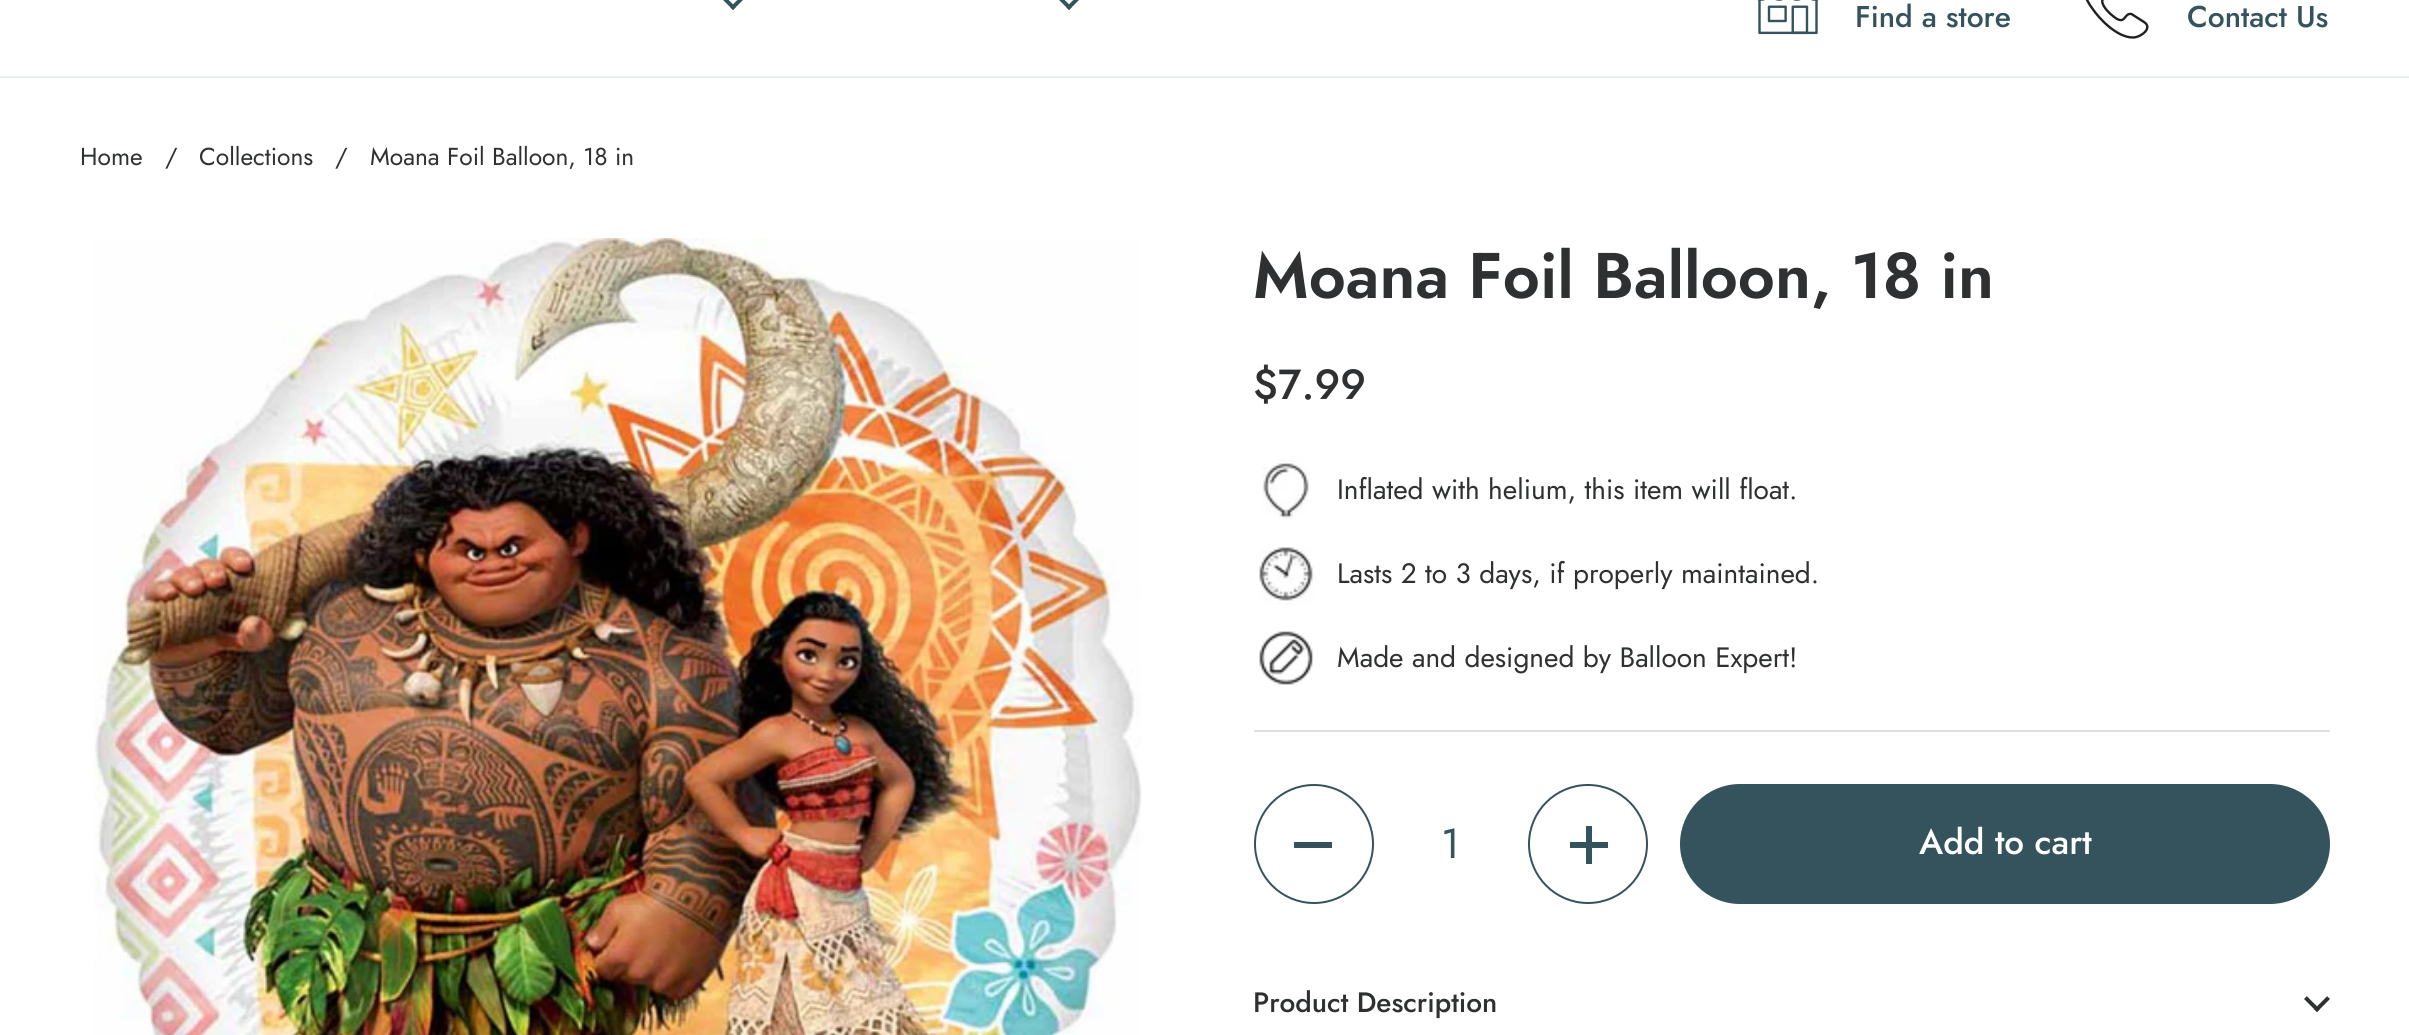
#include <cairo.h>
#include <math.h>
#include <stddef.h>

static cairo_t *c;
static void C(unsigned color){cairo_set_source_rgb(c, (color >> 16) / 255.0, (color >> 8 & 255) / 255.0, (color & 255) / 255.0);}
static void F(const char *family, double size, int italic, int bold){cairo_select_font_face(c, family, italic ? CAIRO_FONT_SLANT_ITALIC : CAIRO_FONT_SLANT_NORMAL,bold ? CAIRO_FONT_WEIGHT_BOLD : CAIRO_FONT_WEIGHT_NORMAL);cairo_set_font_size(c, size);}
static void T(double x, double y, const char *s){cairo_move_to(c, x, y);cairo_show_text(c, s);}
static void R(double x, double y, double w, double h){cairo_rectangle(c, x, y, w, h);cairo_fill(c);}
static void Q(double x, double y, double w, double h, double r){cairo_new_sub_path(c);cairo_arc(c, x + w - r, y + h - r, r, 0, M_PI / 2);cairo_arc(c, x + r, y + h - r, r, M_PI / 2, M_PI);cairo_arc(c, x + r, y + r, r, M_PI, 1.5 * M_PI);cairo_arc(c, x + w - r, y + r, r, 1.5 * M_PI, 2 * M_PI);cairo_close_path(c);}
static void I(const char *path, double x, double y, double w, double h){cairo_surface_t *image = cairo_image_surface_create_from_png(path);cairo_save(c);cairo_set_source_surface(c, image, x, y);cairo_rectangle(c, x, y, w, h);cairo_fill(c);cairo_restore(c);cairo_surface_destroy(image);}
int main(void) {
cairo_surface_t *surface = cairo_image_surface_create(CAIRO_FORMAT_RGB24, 2409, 1035);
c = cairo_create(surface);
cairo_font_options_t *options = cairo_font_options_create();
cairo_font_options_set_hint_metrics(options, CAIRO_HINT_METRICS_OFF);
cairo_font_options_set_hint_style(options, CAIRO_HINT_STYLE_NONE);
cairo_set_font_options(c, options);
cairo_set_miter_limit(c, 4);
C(0xffffff);
cairo_paint(c);
C(0xebeeef);
R(0,76,2409,2);
I("1.png",723,0,20,10);
I("1.png",1059,0,20,10);
I("2.png",1757,0,62,35);
F("Jost Medium",30,0,0);
C(0x34535c);
T(1855,27,"Find a store");
cairo_new_path(c);
cairo_move_to(c,2144,22);
cairo_curve_to(c,2153.5,28,2140.5,37.5,2133,37.5);
cairo_curve_to(c,2117.5,37.5,2100,20,2092,8);
cairo_curve_to(c,2087.5,2,2083,-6.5,2084.5,-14.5);
cairo_curve_to(c,2085.5,-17,2087,-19.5,2089,-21.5);
cairo_curve_to(c,2091,-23.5,2094.5,-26.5,2097.5,-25);
cairo_curve_to(c,2100.5,-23.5,2102,-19.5,2103.5,-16.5);
cairo_line_to(c,2107.5,-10.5);
cairo_curve_to(c,2110,-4.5,2100.5,-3,2102.5,3);
cairo_curve_to(c,2104,8,2109,13,2113.5,16.5);
cairo_curve_to(c,2126,26.5,2123.5,12.5,2131.5,14);
cairo_line_to(c,2133,15);
cairo_close_path(c);
C(0x202020);
cairo_set_line_width(c,2.4);
cairo_set_line_cap(c,CAIRO_LINE_CAP_ROUND);
cairo_set_line_join(c,CAIRO_LINE_JOIN_ROUND);
cairo_stroke(c);
C(0x34535c);
T(2187,27,"Contact Us");
F("Jost",24.5,0,0);
C(0x2e3031);
T(80,165,"Home");
T(165,165,"/");
T(199,165,"Collections");
T(335,165,"/");
T(370,165,"Moana Foil Balloon, 18 in");
I("3.png",93,238,1049,797);
F("Jost SemiBold",64.4,0,0);
T(1253,298,"Moana Foil Balloon, 18 in");
F("Jost Medium",42,0,0);
T(1253,399,"$7.99");
I("4.png",1262,458,47,62);
F("Jost",28,0,0);
T(1337,499,"Inflated with helium, this item will float.");
I("5.png",1259,547,57,58);
T(1337,583,"Lasts 2 to 3 days, if properly maintained.");
I("6.png",1259,631,54,54);
T(1337,667,"Made and designed by Balloon Expert!");
C(0xe0e0e0);
R(1254,730,1076,2);
cairo_new_path(c);
cairo_arc(c,1314,844,59,0,2 * M_PI);
C(0x34535c);
cairo_set_line_width(c,2);
cairo_set_line_cap(c,CAIRO_LINE_CAP_BUTT);
cairo_set_line_join(c,CAIRO_LINE_JOIN_MITER);
cairo_stroke(c);
R(1294,842,38,6);
F("Jost",42,0,0);
T(1441,858,"1");
cairo_new_path(c);
cairo_arc(c,1588,844,59,0,2 * M_PI);
cairo_stroke(c);
R(1586,826,6,38);
R(1570,842,38,6);
Q(1681,785,648,118,59);
cairo_fill_preserve(c);
cairo_stroke(c);
F("Jost Medium",35,0,0);
C(0xffffff);
T(1919,854,"Add to cart");
F("Jost Medium",28,0,0);
C(0x2e3031);
T(1253,1012,"Product Description");
I("7.png",2304,996,26,16);
cairo_surface_write_to_png(surface, "o.png");
cairo_font_options_destroy(options);
cairo_destroy(c);
cairo_surface_destroy(surface);
return 0;
}
